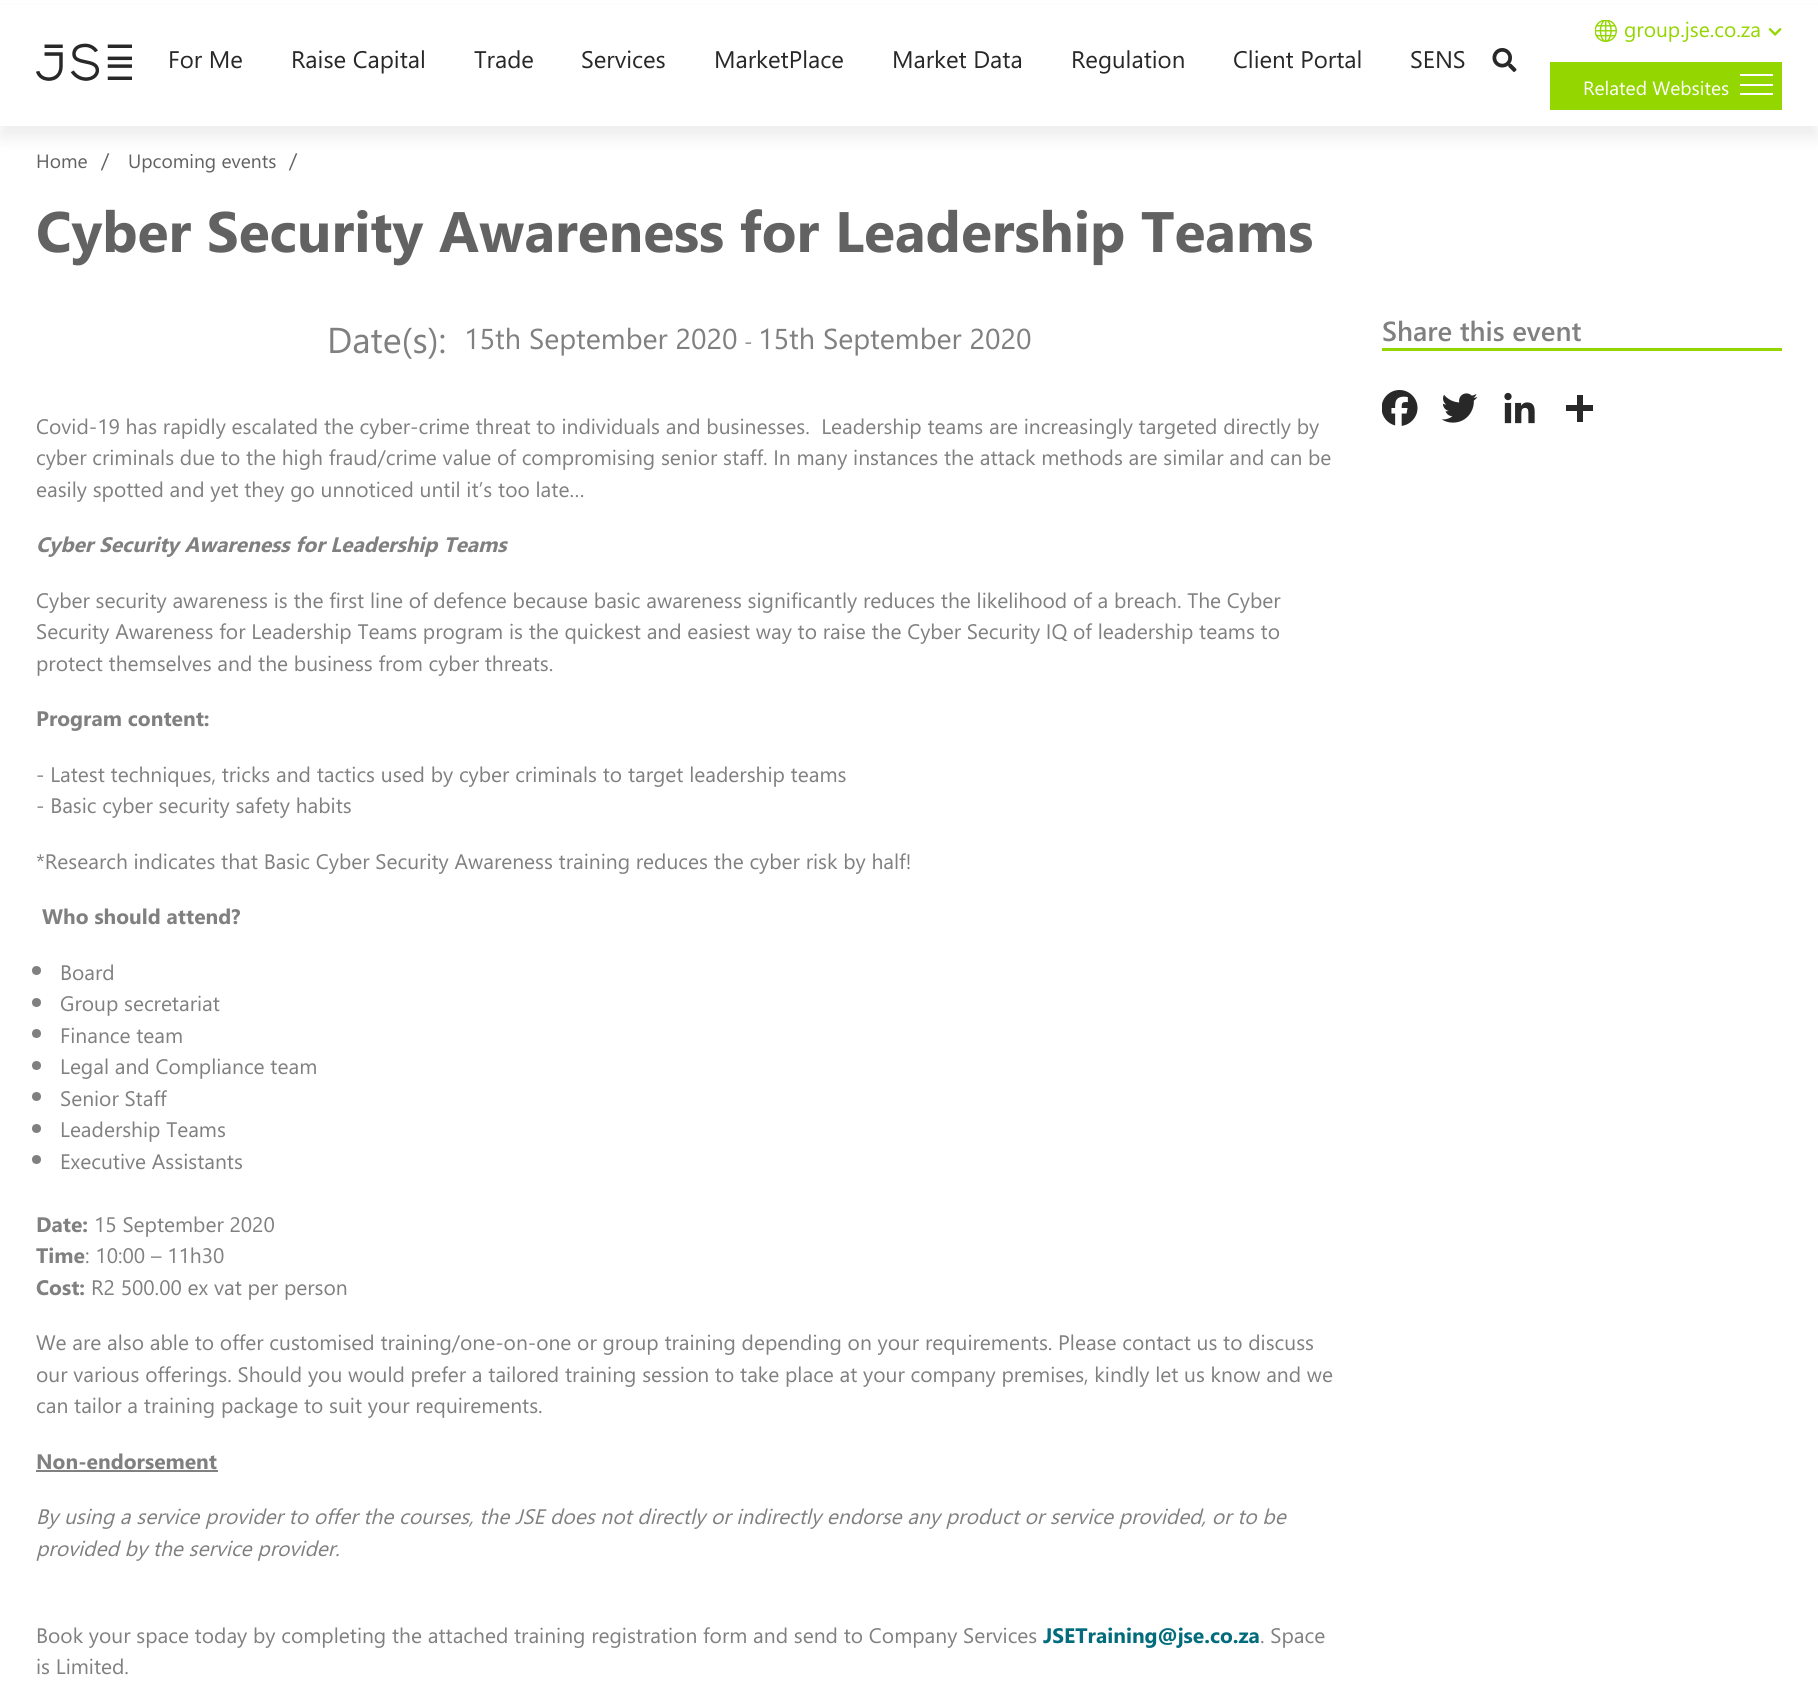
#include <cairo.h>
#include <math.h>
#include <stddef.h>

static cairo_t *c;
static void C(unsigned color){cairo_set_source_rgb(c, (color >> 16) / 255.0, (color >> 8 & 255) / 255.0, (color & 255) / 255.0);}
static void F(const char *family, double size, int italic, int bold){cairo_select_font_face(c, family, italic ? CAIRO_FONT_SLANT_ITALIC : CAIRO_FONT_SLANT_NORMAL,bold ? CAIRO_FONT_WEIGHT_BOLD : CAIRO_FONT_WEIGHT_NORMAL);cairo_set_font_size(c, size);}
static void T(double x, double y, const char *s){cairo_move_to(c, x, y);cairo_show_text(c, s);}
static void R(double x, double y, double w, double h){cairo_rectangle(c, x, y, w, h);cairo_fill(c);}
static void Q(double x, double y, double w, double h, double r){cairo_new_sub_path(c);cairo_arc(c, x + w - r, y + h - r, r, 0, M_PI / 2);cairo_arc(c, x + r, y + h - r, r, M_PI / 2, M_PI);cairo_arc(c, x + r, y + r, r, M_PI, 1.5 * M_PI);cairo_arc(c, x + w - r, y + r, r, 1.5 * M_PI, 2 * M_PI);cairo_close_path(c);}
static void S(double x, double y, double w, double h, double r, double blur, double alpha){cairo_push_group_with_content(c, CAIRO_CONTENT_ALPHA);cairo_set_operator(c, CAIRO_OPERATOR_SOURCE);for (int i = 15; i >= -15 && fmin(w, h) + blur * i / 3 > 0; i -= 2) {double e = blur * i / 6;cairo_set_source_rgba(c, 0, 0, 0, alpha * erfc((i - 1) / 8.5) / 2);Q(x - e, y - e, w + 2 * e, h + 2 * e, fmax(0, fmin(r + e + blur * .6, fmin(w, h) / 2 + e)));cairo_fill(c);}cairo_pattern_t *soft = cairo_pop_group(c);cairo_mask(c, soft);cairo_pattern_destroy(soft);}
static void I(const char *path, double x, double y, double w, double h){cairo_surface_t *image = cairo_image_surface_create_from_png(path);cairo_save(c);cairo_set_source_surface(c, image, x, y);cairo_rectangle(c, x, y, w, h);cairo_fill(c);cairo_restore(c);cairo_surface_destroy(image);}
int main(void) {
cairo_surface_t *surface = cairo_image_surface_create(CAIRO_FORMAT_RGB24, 1818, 1705);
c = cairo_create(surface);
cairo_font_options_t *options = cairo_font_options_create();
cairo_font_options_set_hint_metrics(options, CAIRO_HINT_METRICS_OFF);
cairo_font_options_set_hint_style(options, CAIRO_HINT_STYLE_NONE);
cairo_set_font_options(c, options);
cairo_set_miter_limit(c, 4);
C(0xffffff);
cairo_paint(c);
C(0x282828);
S(0,12,1818,126,0,7,.08);
C(0xffffff);
R(0,5,1818,121);
I("1.png",36,43,96,38);
F("Segoe UI",24,0,0);
C(0x282828);
T(168,68,"For Me");
T(291,68,"Raise Capital");
T(474,68,"Trade");
T(581,68,"Services");
T(714,68,"MarketPlace");
T(892,68,"Market Data");
T(1071,68,"Regulation");
T(1233,68,"Client Portal");
T(1410,68,"SENS");
I("2.png",1492,48,25,24);
I("3.png",1595,20,22,22);
F("Segoe UI",21,0,0);
C(0x94d600);
T(1624,37,"group.jse.co.za");
I("4.png",1768,28,14,8);
R(1550,62,232,48);
F("Segoe UI",19.25,0,0);
C(0xffffff);
T(1583,95,"Related Websites");
R(1740,74,33,2);
R(1740,84,33,2);
R(1740,93,33,2);
C(0x626262);
T(36,168,"Home");
F("Segoe UI",21,0,0);
T(101,168,"/");
F("Segoe UI",19.25,0,0);
T(128,168,"Upcoming events");
F("Segoe UI",21,0,0);
T(289,168,"/");
F("Segoe UI",57,0,1);
T(36,252,"Cyber Security Awareness for Leadership Teams");
F("Segoe UI",36,0,0);
C(0x808080);
T(327,353,"Date(s):");
F("Segoe UI",28.75,0,0);
T(464,349,"15th September 2020");
F("Segoe UI",21,0,0);
T(744,349,"-");
F("Segoe UI",28.75,0,0);
T(758,349,"15th September 2020");
F("Segoe UI",21,0,0);
T(36,434,"Covid-19 has rapidly escalated the cyber-crime threat to individuals and businesses.  Leadership teams are increasingly targeted directly by");
T(36,465,"cyber criminals due to the high fraud/crime value of compromising senior staff. In many instances the attack methods are similar and can be");
T(36,497,"easily spotted and yet they go unnoticed until it’s too late…");
F("Segoe UI",21,1,1);
T(36,552,"Cyber Security Awareness for Leadership Teams");
F("Segoe UI",21,0,0);
T(36,608,"Cyber security awareness is the first line of defence because basic awareness significantly reduces the likelihood of a breach. The Cyber");
T(36,639,"Security Awareness for Leadership Teams program is the quickest and easiest way to raise the Cyber Security IQ of leadership teams to");
T(36,671,"protect themselves and the business from cyber threats.");
F("Segoe UI",21,0,1);
T(36,726,"Program content:");
F("Segoe UI",21,0,0);
T(36,782,"- Latest techniques, tricks and tactics used by cyber criminals to target leadership teams");
T(36,813,"- Basic cyber security safety habits");
T(36,869,"*Research indicates that Basic Cyber Security Awareness training reduces the cyber risk by half!");
F("Segoe UI",21,0,1);
T(42,924,"Who should attend?");
cairo_new_path(c);
cairo_arc(c,36.5,970.5,4.5,0,2 * M_PI);
cairo_fill(c);
F("Segoe UI",21,0,0);
T(60,980,"Board");
cairo_new_path(c);
cairo_arc(c,36.5,1002.5,4.5,0,2 * M_PI);
cairo_fill(c);
T(60,1011,"Group secretariat");
cairo_new_path(c);
cairo_arc(c,36.5,1033.5,4.5,0,2 * M_PI);
cairo_fill(c);
T(60,1043,"Finance team");
cairo_new_path(c);
cairo_arc(c,36.5,1065.5,4.5,0,2 * M_PI);
cairo_fill(c);
T(60,1074,"Legal and Compliance team");
cairo_new_path(c);
cairo_arc(c,36.5,1096.5,4.5,0,2 * M_PI);
cairo_fill(c);
T(60,1106,"Senior Staff");
cairo_new_path(c);
cairo_arc(c,36.5,1128.5,4.5,0,2 * M_PI);
cairo_fill(c);
T(60,1137,"Leadership Teams");
cairo_new_path(c);
cairo_arc(c,36.5,1159.5,4.5,0,2 * M_PI);
cairo_fill(c);
T(60,1169,"Executive Assistants");
F("Segoe UI",21,0,1);
T(36,1232,"Date:");
F("Segoe UI",21,0,0);
T(94,1232,"15 September 2020");
F("Segoe UI",21,0,1);
T(36,1263,"Time");
F("Segoe UI",21,0,0);
T(85,1263,": 10:00 – 11h30");
F("Segoe UI",21,0,1);
T(36,1295,"Cost:");
F("Segoe UI",21,0,0);
T(91,1295,"R2 500.00 ex vat per person");
T(36,1350,"We are also able to offer customised training/one-on-one or group training depending on your requirements. Please contact us to discuss");
T(36,1382,"our various offerings. Should you would prefer a tailored training session to take place at your company premises, kindly let us know and we");
T(36,1413,"can tailor a training package to suit your requirements.");
F("Segoe UI",21,0,1);
T(36,1469,"Non-endorsement");
R(36,1470,182,2);
F("Segoe UI",21,1,0);
T(36,1524,"By using a service provider to offer the courses, the JSE does not directly or indirectly endorse any product or service provided, or to be");
T(36,1556,"provided by the service provider.");
F("Segoe UI",21,0,0);
T(36,1643,"Book your space today by completing the attached training registration form and send to Company Services");
F("Segoe UI",21,0,1);
C(0x026c7c);
T(1043,1643,"JSETraining@jse.co.za");
F("Segoe UI",21,0,0);
C(0x808080);
T(1260,1643,". Space");
T(36,1674,"is Limited.");
C(0x94d600);
R(1382,348,400,3);
F("Segoe UI SemiBold",27.5,0,0);
C(0x808080);
T(1382,341,"Share this event");
I("5.png",1382,390,36,36);
I("6.png",1441,393,37,30);
I("7.png",1504,392,31,32);
C(0x282828);
R(1577,395,6,27);
R(1566,405,27,6);
cairo_surface_write_to_png(surface, "o.png");
cairo_font_options_destroy(options);
cairo_destroy(c);
cairo_surface_destroy(surface);
return 0;
}
